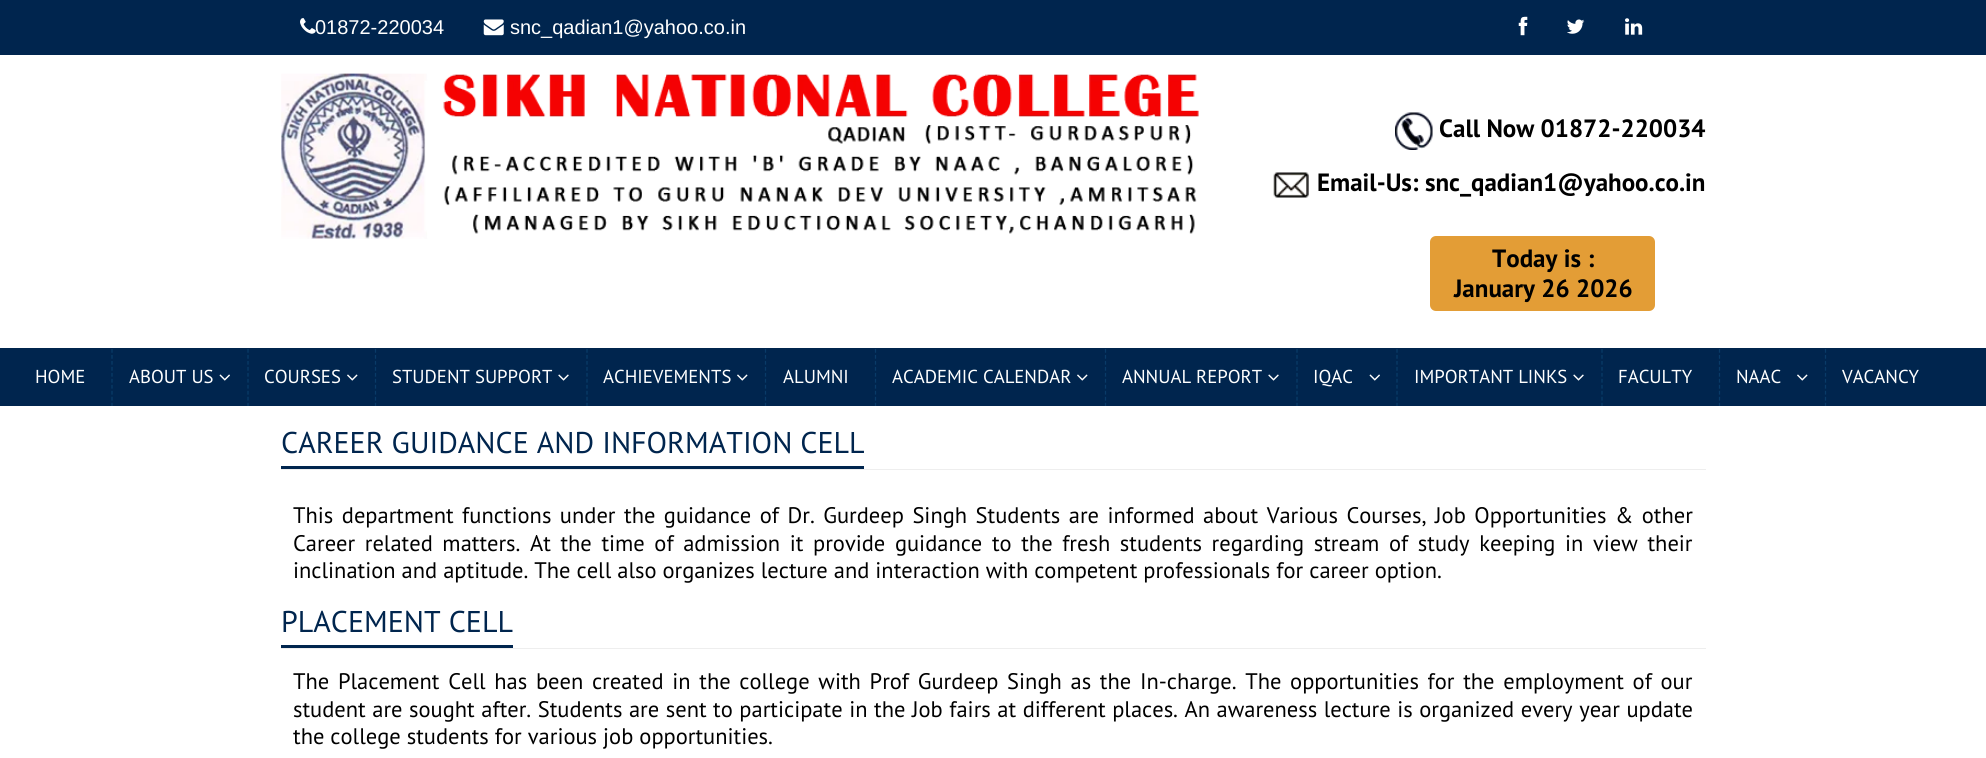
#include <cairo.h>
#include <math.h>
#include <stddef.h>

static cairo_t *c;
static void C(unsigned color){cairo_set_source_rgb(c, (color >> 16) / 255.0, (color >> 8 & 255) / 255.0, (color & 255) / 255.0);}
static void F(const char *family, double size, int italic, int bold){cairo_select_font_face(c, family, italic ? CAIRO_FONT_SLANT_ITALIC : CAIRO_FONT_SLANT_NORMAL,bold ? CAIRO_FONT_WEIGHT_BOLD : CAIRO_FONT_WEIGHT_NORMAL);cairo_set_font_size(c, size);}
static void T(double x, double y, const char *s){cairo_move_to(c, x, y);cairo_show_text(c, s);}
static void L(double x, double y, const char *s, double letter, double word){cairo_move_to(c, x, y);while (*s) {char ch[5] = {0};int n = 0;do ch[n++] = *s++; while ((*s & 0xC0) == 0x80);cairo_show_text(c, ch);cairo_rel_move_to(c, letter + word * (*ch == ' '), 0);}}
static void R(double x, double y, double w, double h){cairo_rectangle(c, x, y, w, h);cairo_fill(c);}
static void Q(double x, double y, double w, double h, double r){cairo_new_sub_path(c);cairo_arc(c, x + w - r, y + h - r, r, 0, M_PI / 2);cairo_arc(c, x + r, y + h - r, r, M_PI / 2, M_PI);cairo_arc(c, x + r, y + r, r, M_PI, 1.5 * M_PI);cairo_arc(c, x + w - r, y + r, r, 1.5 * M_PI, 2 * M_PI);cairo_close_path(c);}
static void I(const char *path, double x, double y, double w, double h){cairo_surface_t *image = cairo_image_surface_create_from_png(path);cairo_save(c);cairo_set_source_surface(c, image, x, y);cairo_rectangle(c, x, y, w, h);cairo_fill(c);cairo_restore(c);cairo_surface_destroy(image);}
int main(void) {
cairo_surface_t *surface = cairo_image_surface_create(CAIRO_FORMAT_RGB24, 1986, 758);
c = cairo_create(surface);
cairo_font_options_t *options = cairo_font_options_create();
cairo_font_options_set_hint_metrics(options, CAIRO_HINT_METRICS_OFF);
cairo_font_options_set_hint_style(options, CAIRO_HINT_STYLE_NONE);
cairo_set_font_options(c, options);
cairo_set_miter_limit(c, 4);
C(0xffffff);
cairo_paint(c);
C(0x00254e);
R(0,0,1986,55);
I("1.png",300,18,16,16);
F("Liberation Sans",20,0,0);
C(0xffffff);
T(315,34,"01872-220034");
I("2.png",483,19,21,17);
T(510,34,"snc_qadian1@yahoo.co.in");
I("3.png",1518,16,10,20);
I("4.png",1567,19,18,15);
I("5.png",1625,18,18,17);
I("6.png",281,73,918,166);
I("7.png",1395,112,38,38);
F("PT Sans",25,0,1);
C(0x000000);
T(1439,137,"Call Now 01872-220034");
I("8.png",1273,172,36,26);
T(1317,191,"Email-Us: snc_qadian1@yahoo.co.in");
C(0xe39d36);
Q(1430,236,225,75,6);
cairo_fill(c);
C(0x000000);
T(1492,267,"Today is :");
T(1454,297,"January 26 2026");
C(0x00254e);
R(0,348,1986,58);
cairo_new_path(c);
cairo_move_to(c,112,349);
cairo_line_to(c,112,406);
C(0x093b68);
cairo_set_line_width(c,1.2);
cairo_set_dash(c,(double[]){3.75,2.23},2,0);
cairo_stroke(c);
F("PT Sans",18.75,0,0);
C(0xffffff);
T(35,383,"HOME");
cairo_new_path(c);
cairo_move_to(c,248,349);
cairo_line_to(c,248,406);
C(0x093b68);
cairo_stroke(c);
C(0xffffff);
T(129,383,"ABOUT US");
I("9.png",219,374,11,7);
cairo_new_path(c);
cairo_move_to(c,375.5,349);
cairo_line_to(c,375.5,406);
C(0x093b68);
cairo_stroke(c);
C(0xffffff);
T(264,383,"COURSES");
I("10.png",347,374,11,7);
cairo_new_path(c);
cairo_move_to(c,587,349);
cairo_line_to(c,587,406);
C(0x093b68);
cairo_stroke(c);
C(0xffffff);
T(392,383,"STUDENT SUPPORT");
I("11.png",558,374,11,7);
cairo_new_path(c);
cairo_move_to(c,765.5,349);
cairo_line_to(c,765.5,406);
C(0x093b68);
cairo_stroke(c);
C(0xffffff);
T(603,383,"ACHIEVEMENTS");
I("10.png",737,374,11,7);
cairo_new_path(c);
cairo_move_to(c,875.5,349);
cairo_line_to(c,875.5,406);
C(0x093b68);
cairo_stroke(c);
C(0xffffff);
T(783,383,"ALUMNI");
cairo_new_path(c);
cairo_move_to(c,1105.5,349);
cairo_line_to(c,1105.5,406);
C(0x093b68);
cairo_stroke(c);
C(0xffffff);
T(892,383,"ACADEMIC CALENDAR");
I("10.png",1077,374,11,7);
cairo_new_path(c);
cairo_move_to(c,1297,349);
cairo_line_to(c,1297,406);
C(0x093b68);
cairo_stroke(c);
C(0xffffff);
T(1122,383,"ANNUAL REPORT");
I("11.png",1268,374,11,7);
cairo_new_path(c);
cairo_move_to(c,1397,349);
cairo_line_to(c,1397,406);
C(0x093b68);
cairo_stroke(c);
C(0xffffff);
T(1313,383,"IQAC");
I("9.png",1369,374,11,7);
cairo_new_path(c);
cairo_move_to(c,1602,349);
cairo_line_to(c,1602,406);
C(0x093b68);
cairo_stroke(c);
C(0xffffff);
T(1414,383,"IMPORTANT LINKS");
I("11.png",1573,374,11,7);
cairo_new_path(c);
cairo_move_to(c,1719.5,349);
cairo_line_to(c,1719.5,406);
C(0x093b68);
cairo_stroke(c);
C(0xffffff);
T(1618,383,"FACULTY");
cairo_new_path(c);
cairo_move_to(c,1825.5,349);
cairo_line_to(c,1825.5,406);
C(0x093b68);
cairo_stroke(c);
C(0xffffff);
T(1736,383,"NAAC");
I("10.png",1797,374,11,7);
T(1842,383,"VACANCY");
C(0xeeeeee);
R(281,469,1425,1);
F("PT Sans",30,0,0);
C(0x00254e);
T(281,453,"CAREER GUIDANCE AND INFORMATION CELL");
R(281,466,583,3);
F("PT Sans",22.5,0,0);
C(0x000000);
L(293,523,"This department functions under the guidance of Dr. Gurdeep Singh Students are informed about Various Courses, Job Opportunities & other",0,2.5);
L(293,551,"Career related matters. At the time of admission it provide guidance to the fresh students regarding stream of study keeping in view their",0,3.6);
T(293,578,"inclination and aptitude. The cell also organizes lecture and interaction with competent professionals for career option.");
C(0xeeeeee);
R(281,648,1425,1);
F("PT Sans",30,0,0);
C(0x00254e);
T(281,632,"PLACEMENT CELL");
R(281,645,232,3);
F("PT Sans",22.5,0,0);
C(0x000000);
L(293,689,"The Placement Cell has been created in the college with Prof Gurdeep Singh as the In-charge. The opportunities for the employment of our",0,2.7);
L(293,717,"student are sought after. Students are sent to participate in the Job fairs at different places. An awareness lecture is organized every year update",0,.55);
T(293,744,"the college students for various job opportunities.");
cairo_surface_write_to_png(surface, "o.png");
cairo_font_options_destroy(options);
cairo_destroy(c);
cairo_surface_destroy(surface);
return 0;
}
